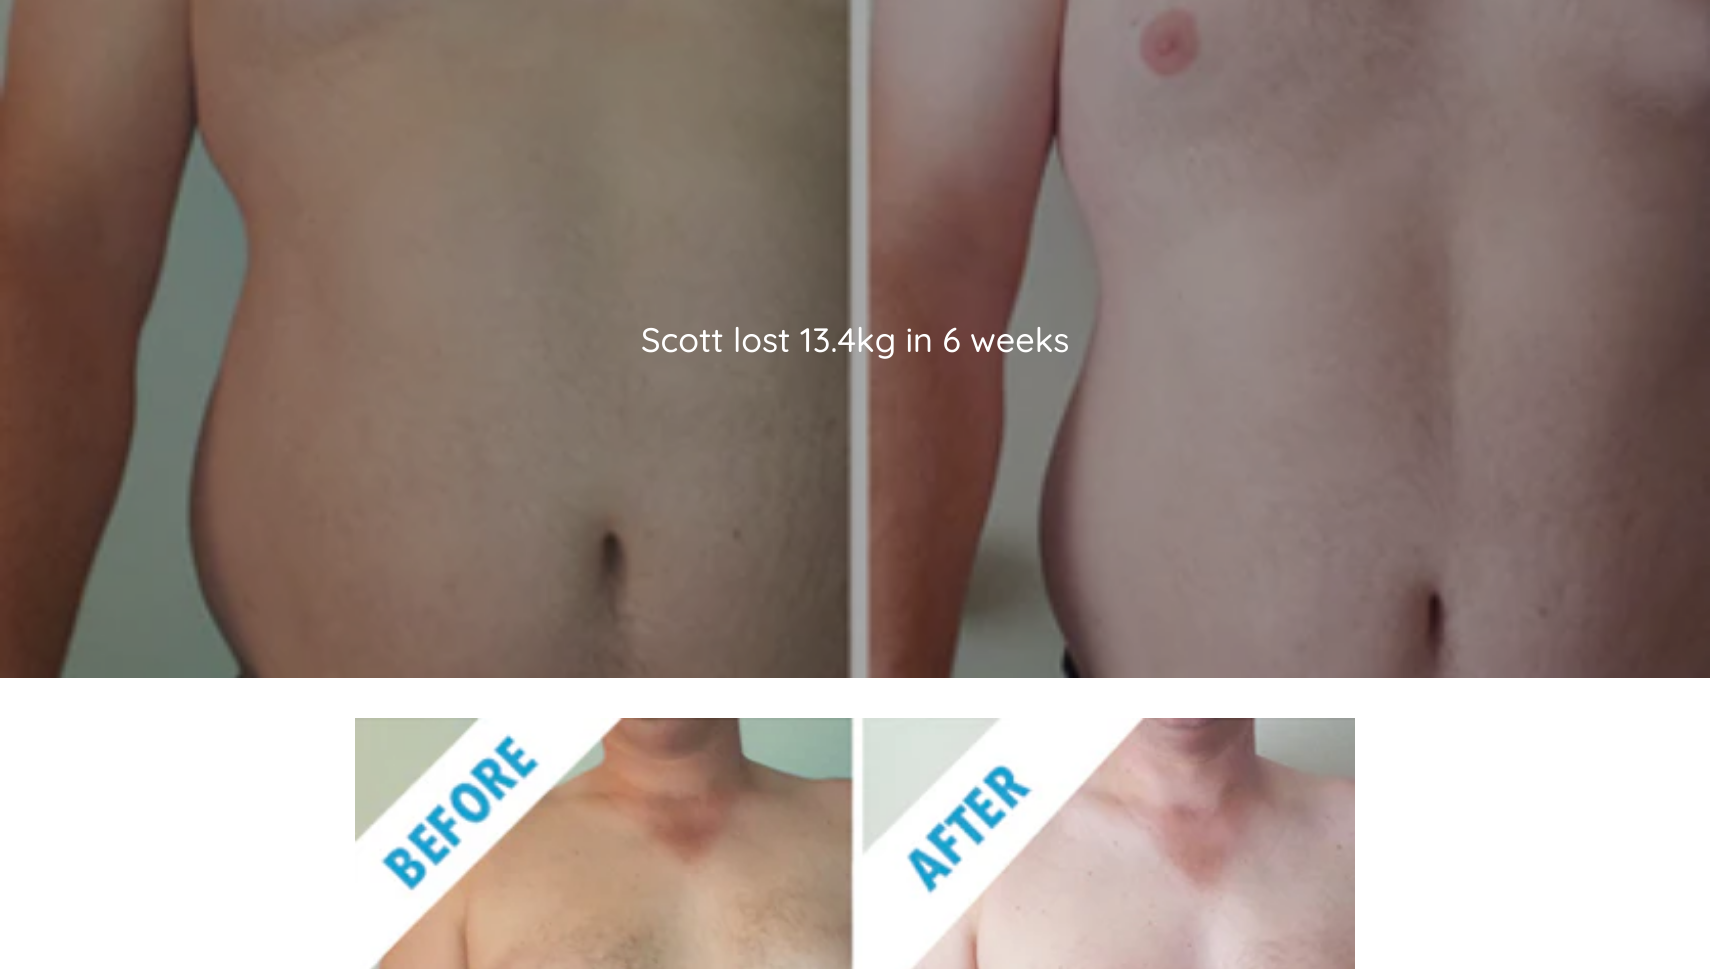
#include <cairo.h>
#include <math.h>
#include <stddef.h>

static cairo_t *c;
static void C(unsigned color){cairo_set_source_rgb(c, (color >> 16) / 255.0, (color >> 8 & 255) / 255.0, (color & 255) / 255.0);}
static void F(const char *family, double size, int italic, int bold){cairo_select_font_face(c, family, italic ? CAIRO_FONT_SLANT_ITALIC : CAIRO_FONT_SLANT_NORMAL,bold ? CAIRO_FONT_WEIGHT_BOLD : CAIRO_FONT_WEIGHT_NORMAL);cairo_set_font_size(c, size);}
static void T(double x, double y, const char *s){cairo_move_to(c, x, y);cairo_show_text(c, s);}
static void I(const char *path, double x, double y, double w, double h){cairo_surface_t *image = cairo_image_surface_create_from_png(path);cairo_save(c);cairo_set_source_surface(c, image, x, y);cairo_rectangle(c, x, y, w, h);cairo_fill(c);cairo_restore(c);cairo_surface_destroy(image);}
int main(void) {
cairo_surface_t *surface = cairo_image_surface_create(CAIRO_FORMAT_RGB24, 1710, 969);
c = cairo_create(surface);
cairo_font_options_t *options = cairo_font_options_create();
cairo_font_options_set_hint_metrics(options, CAIRO_HINT_METRICS_OFF);
cairo_font_options_set_hint_style(options, CAIRO_HINT_STYLE_NONE);
cairo_set_font_options(c, options);
cairo_set_miter_limit(c, 4);
C(0xffffff);
cairo_paint(c);
I("1.png",0,0,1710,678);
F("Quicksand Medium",34,0,0);
C(0xffffff);
T(641,352,"Scott lost 13.4kg in 6 weeks");
I("2.png",355,718,1000,251);
cairo_surface_write_to_png(surface, "o.png");
cairo_font_options_destroy(options);
cairo_destroy(c);
cairo_surface_destroy(surface);
return 0;
}
